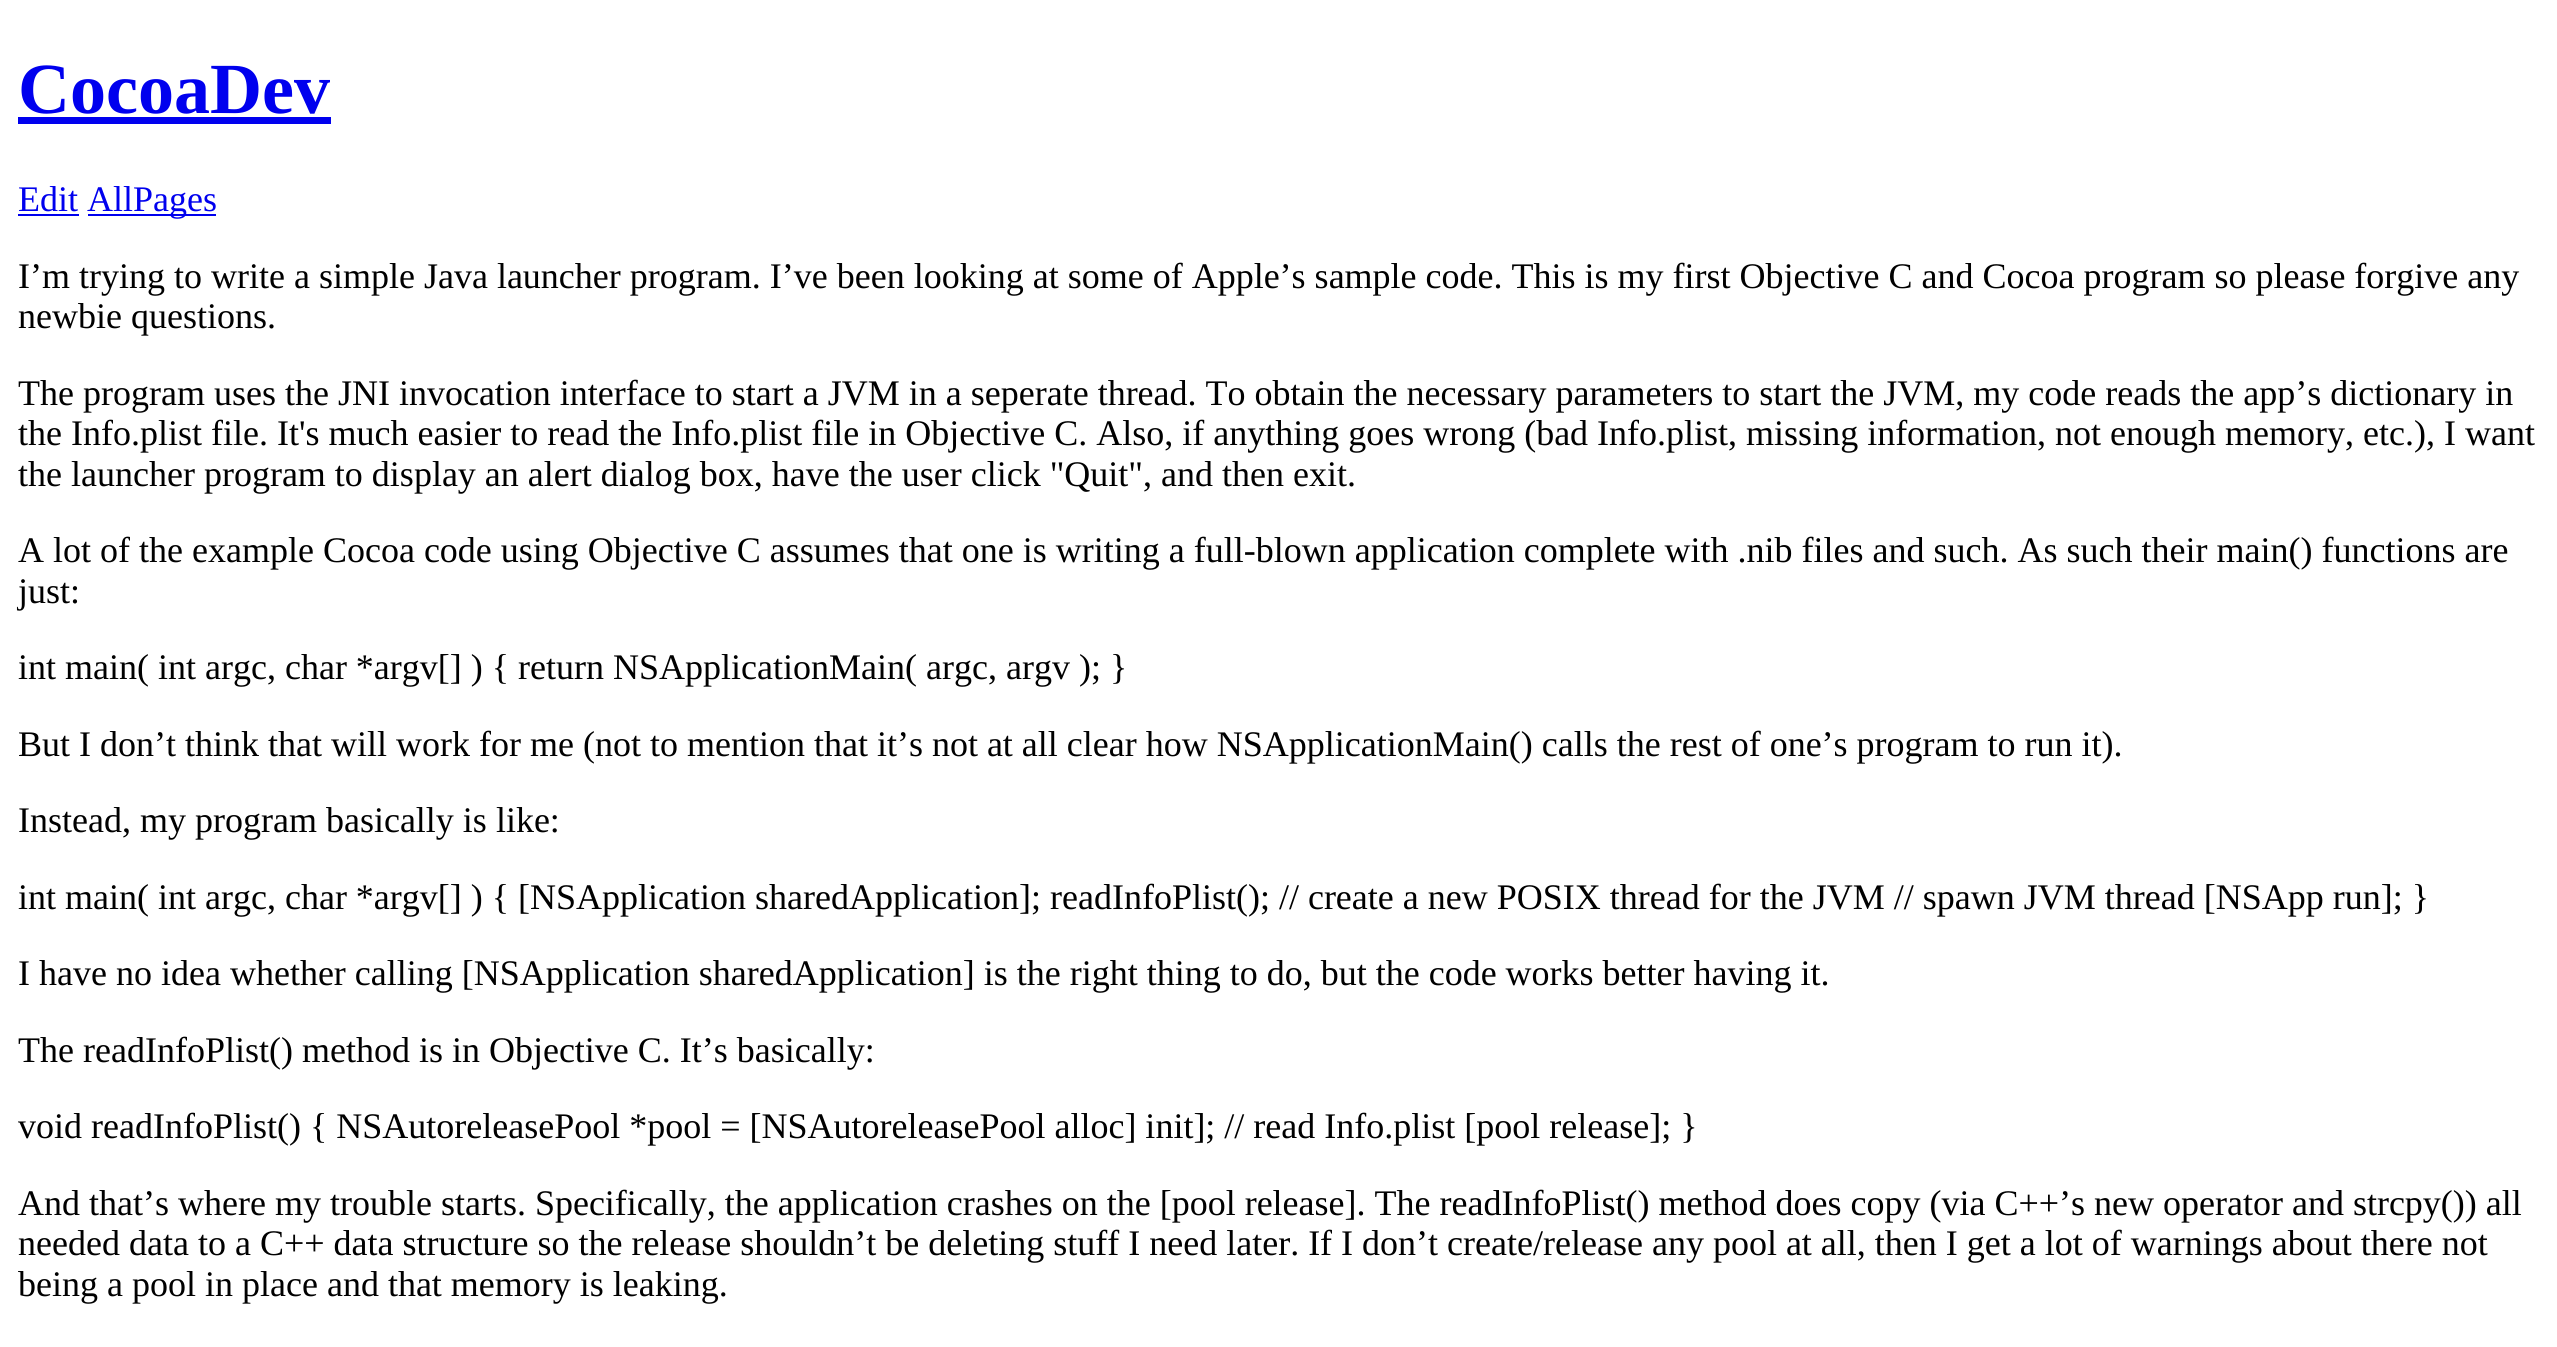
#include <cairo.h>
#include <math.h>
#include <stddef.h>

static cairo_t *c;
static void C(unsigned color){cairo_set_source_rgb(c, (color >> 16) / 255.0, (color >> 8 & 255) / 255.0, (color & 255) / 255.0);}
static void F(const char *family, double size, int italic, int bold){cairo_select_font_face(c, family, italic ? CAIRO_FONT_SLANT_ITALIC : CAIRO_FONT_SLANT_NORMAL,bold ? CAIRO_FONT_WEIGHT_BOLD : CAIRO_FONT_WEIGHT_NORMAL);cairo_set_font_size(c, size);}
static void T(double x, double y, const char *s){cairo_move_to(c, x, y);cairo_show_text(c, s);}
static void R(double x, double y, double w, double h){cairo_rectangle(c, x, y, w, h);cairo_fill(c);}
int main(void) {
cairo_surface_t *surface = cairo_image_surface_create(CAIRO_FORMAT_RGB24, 2557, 1347);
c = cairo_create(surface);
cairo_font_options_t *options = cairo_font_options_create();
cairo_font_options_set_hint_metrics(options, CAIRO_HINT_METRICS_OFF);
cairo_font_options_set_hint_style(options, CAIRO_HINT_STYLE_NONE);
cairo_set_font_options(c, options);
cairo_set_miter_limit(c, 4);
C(0xffffff);
cairo_paint(c);
F("Liberation Serif",72,0,1);
C(0x0000ee);
T(18,113,"CocoaDev");
R(18,117,313,7);
F("Liberation Serif",36,0,0);
T(18,211,"Edit");
R(18,214,61,2);
R(88,214,128,2);
T(87,211,"AllPages");
C(0x000000);
T(18,288,"I’m trying to write a simple Java launcher program. I’ve been looking at some of Apple’s sample code. This is my first Objective C and Cocoa program so please forgive any");
T(18,328,"newbie questions.");
T(18,405,"The program uses the JNI invocation interface to start a JVM in a seperate thread. To obtain the necessary parameters to start the JVM, my code reads the app’s dictionary in");
T(18,445,"the Info.plist file. It's much easier to read the Info.plist file in Objective C. Also, if anything goes wrong (bad Info.plist, missing information, not enough memory, etc.), I want");
T(18,486,"the launcher program to display an alert dialog box, have the user click \"Quit\", and then exit.");
T(18,562,"A lot of the example Cocoa code using Objective C assumes that one is writing a full-blown application complete with .nib files and such. As such their main() functions are");
T(18,603,"just:");
T(18,679,"int main( int argc, char *argv[] ) { return NSApplicationMain( argc, argv ); }");
T(18,756,"But I don’t think that will work for me (not to mention that it’s not at all clear how NSApplicationMain() calls the rest of one’s program to run it).");
T(18,832,"Instead, my program basically is like:");
T(18,909,"int main( int argc, char *argv[] ) { [NSApplication sharedApplication]; readInfoPlist(); // create a new POSIX thread for the JVM // spawn JVM thread [NSApp run]; }");
T(18,985,"I have no idea whether calling [NSApplication sharedApplication] is the right thing to do, but the code works better having it.");
T(18,1062,"The readInfoPlist() method is in Objective C. It’s basically:");
T(18,1138,"void readInfoPlist() { NSAutoreleasePool *pool = [NSAutoreleasePool alloc] init]; // read Info.plist [pool release]; }");
T(18,1215,"And that’s where my trouble starts. Specifically, the application crashes on the [pool release]. The readInfoPlist() method does copy (via C++’s new operator and strcpy()) all");
T(18,1255,"needed data to a C++ data structure so the release shouldn’t be deleting stuff I need later. If I don’t create/release any pool at all, then I get a lot of warnings about there not");
T(18,1296,"being a pool in place and that memory is leaking.");
cairo_surface_write_to_png(surface, "o.png");
cairo_font_options_destroy(options);
cairo_destroy(c);
cairo_surface_destroy(surface);
return 0;
}
